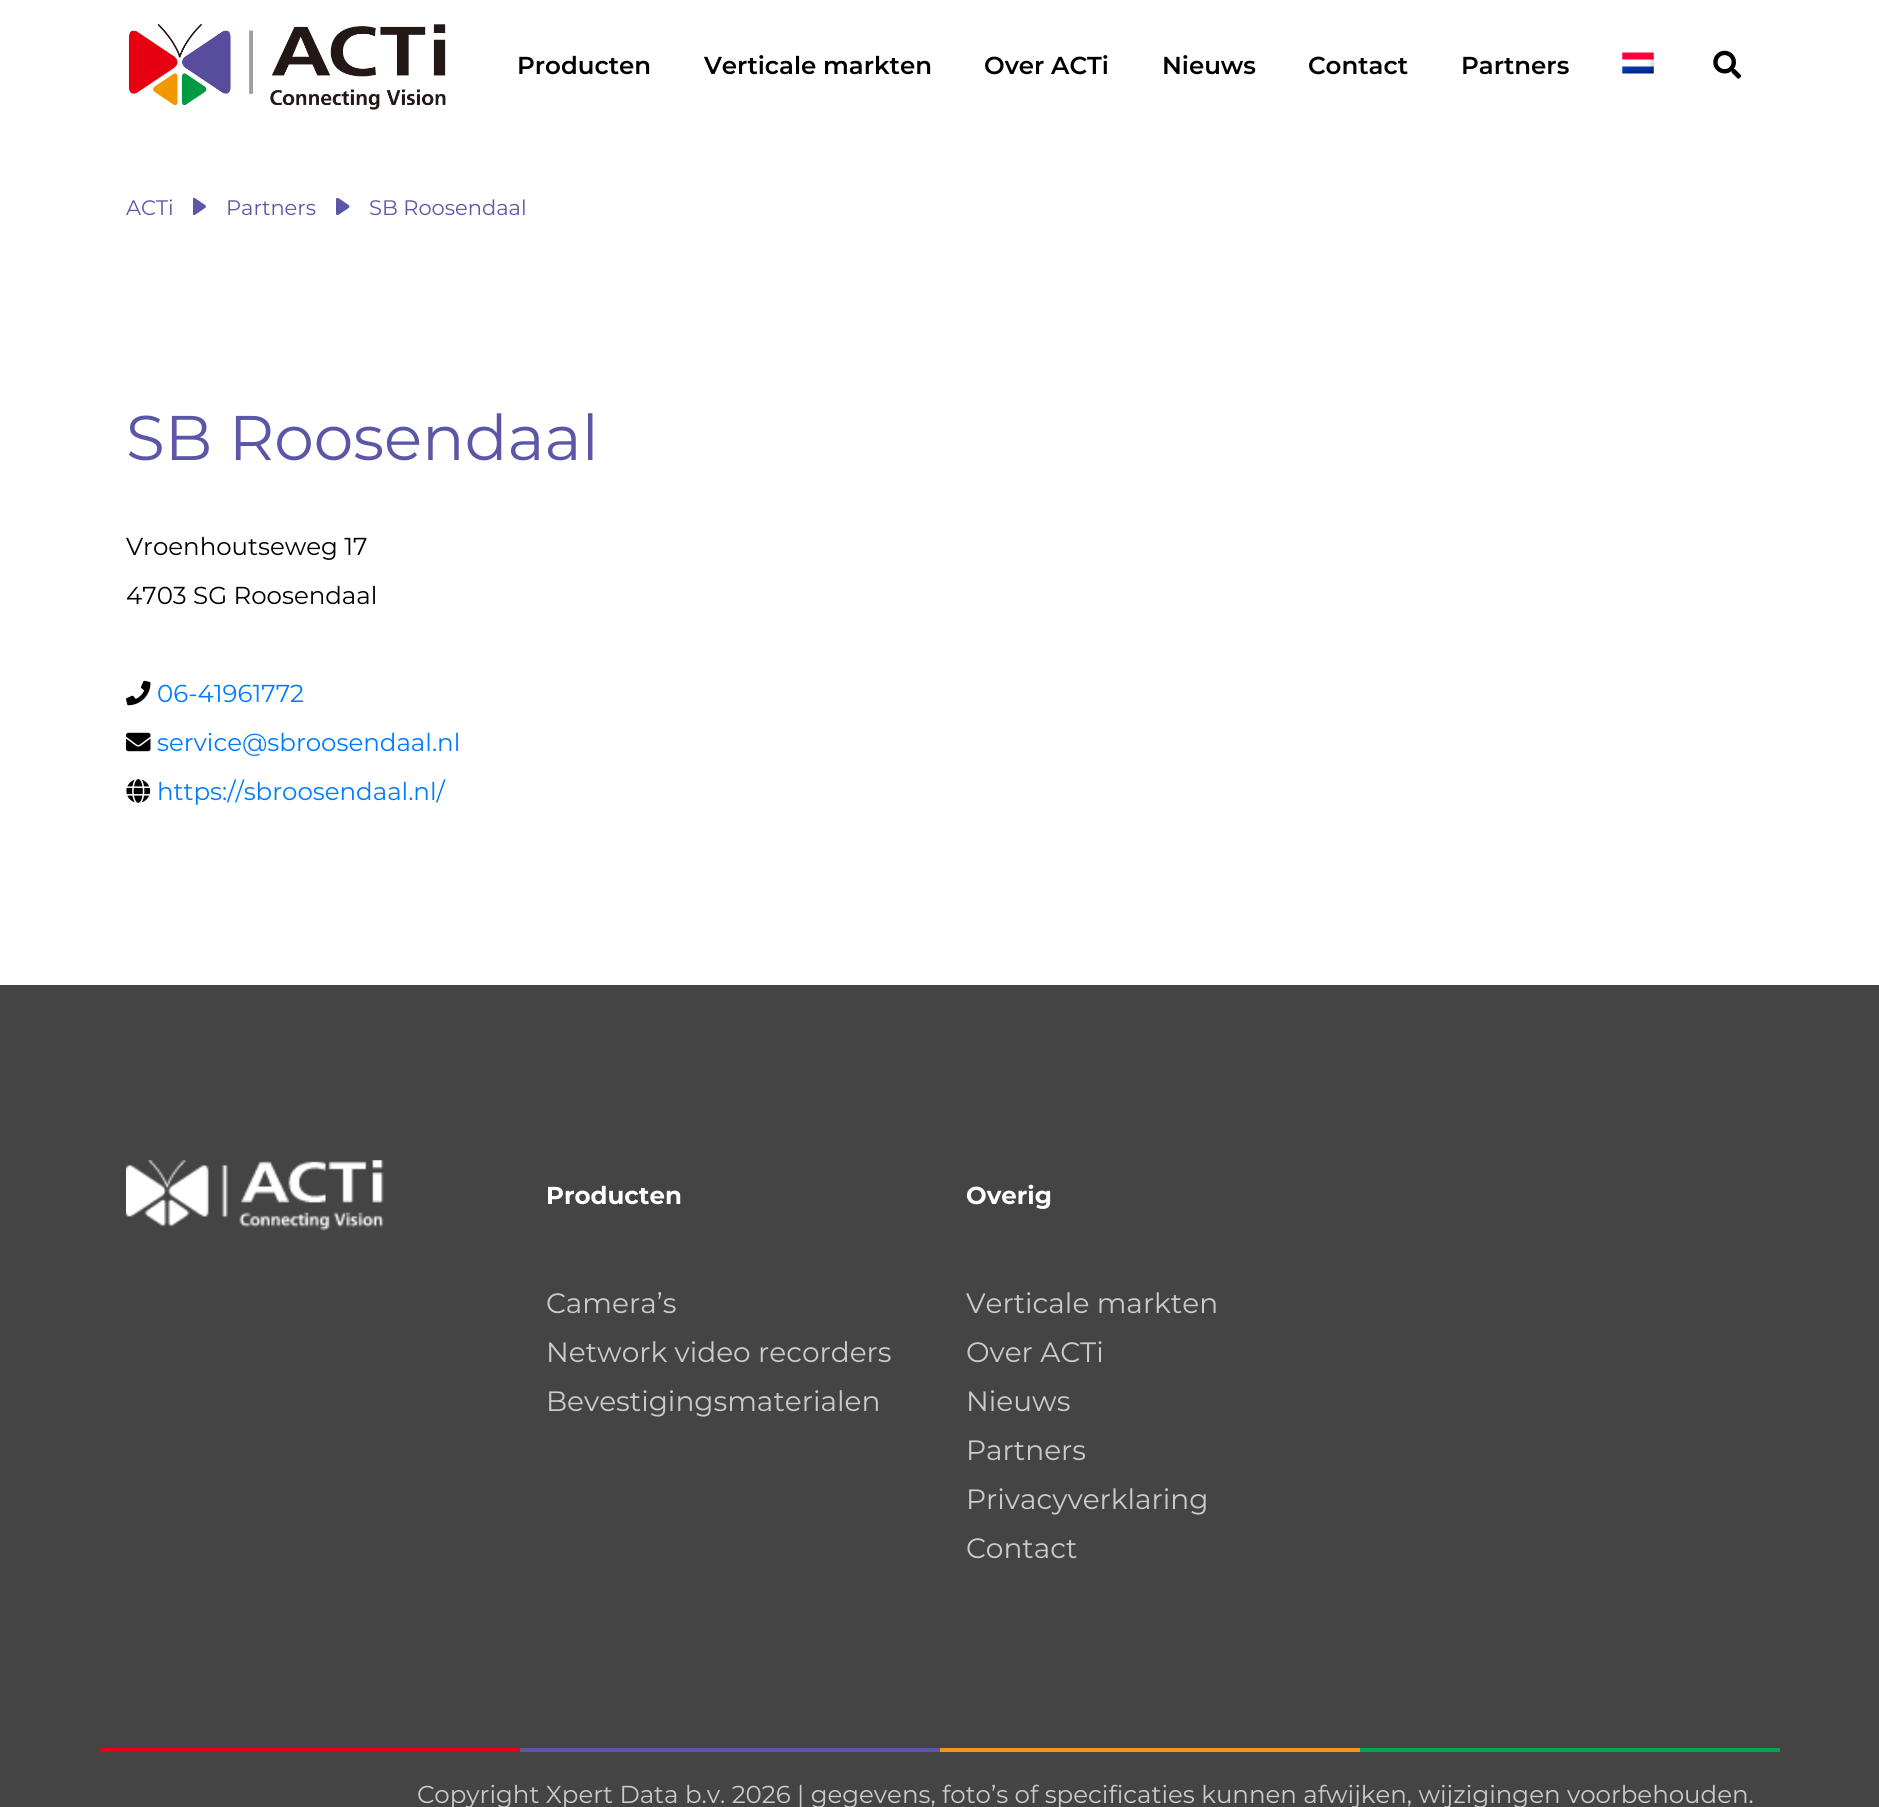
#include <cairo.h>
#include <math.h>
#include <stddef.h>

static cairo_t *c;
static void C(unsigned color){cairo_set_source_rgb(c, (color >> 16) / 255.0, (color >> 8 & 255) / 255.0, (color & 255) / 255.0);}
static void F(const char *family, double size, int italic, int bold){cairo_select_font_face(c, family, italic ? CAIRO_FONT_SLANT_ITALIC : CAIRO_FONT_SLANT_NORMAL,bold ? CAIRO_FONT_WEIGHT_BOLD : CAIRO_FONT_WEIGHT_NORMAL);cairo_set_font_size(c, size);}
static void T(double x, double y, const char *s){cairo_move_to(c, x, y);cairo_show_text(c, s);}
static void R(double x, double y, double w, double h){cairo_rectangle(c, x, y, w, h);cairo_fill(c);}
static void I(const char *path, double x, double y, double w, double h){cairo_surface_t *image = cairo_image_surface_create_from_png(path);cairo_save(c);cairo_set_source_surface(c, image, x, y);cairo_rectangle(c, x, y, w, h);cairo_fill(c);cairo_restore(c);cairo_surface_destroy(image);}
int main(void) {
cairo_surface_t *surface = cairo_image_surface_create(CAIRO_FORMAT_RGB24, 1879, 1807);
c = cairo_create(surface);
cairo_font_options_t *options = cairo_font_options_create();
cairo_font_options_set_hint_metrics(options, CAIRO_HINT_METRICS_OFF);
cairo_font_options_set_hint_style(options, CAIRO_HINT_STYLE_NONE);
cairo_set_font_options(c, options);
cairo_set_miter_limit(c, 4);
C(0xffffff);
cairo_paint(c);
I("1.png",128,24,318,86);
F("Montserrat SemiBold",24.5,0,0);
C(0x000000);
T(517,74,"Producten");
T(704,74,"Verticale markten");
T(984,74,"Over ACTi");
T(1162,74,"Nieuws");
T(1308,74,"Contact");
T(1461,74,"Partners");
I("2.png",1622,52,32,22);
I("3.png",1713,50,29,29);
F("Montserrat",21,0,0);
C(0x5b57a6);
T(126,215,"ACTi");
I("4.png",193,198,13,17);
T(226,215,"Partners");
I("5.png",336,198,14,17);
T(369,215,"SB Roosendaal");
F("Montserrat",63,0,0);
T(126,460,"SB Roosendaal");
F("Montserrat",24.5,0,0);
C(0x000000);
T(126,555,"Vroenhoutseweg 17");
T(126,604,"4703 SG Roosendaal");
I("6.png",126,680,25,26);
C(0x007bff);
T(157,702,"06-41961772");
I("7.png",126,732,25,20);
T(157,751,"service@sbroosendaal.nl");
I("8.png",126,779,25,24);
T(157,800,"https://sbroosendaal.nl/");
C(0x444444);
R(0,985,1879,822);
C(0xe60012);
R(100,1748,420,4);
I("9.png",126,1160,258,71);
C(0x5b57a6);
R(520,1748,420,4);
F("Montserrat",24.5,0,1);
C(0xffffff);
T(546,1204,"Producten");
F("Montserrat",28,0,0);
C(0xcccaca);
T(546,1313,"Camera’s");
T(546,1362,"Network video recorders");
T(546,1411,"Bevestigingsmaterialen");
C(0xf7941e);
R(940,1748,420,4);
F("Montserrat",24.5,0,1);
C(0xffffff);
T(966,1204,"Overig");
F("Montserrat",28,0,0);
C(0xcccaca);
T(966,1313,"Verticale markten");
T(966,1362,"Over ACTi");
T(966,1411,"Nieuws");
T(966,1460,"Partners");
T(966,1509,"Privacyverklaring");
T(966,1558,"Contact");
C(0x00a651);
R(1360,1748,420,4);
F("Montserrat",24.5,0,0);
C(0xcccaca);
T(417,1803,"Copyright Xpert Data b.v. 2026 | gegevens, foto’s of specificaties kunnen afwijken, wijzigingen voorbehouden.");
cairo_surface_write_to_png(surface, "o.png");
cairo_font_options_destroy(options);
cairo_destroy(c);
cairo_surface_destroy(surface);
return 0;
}
